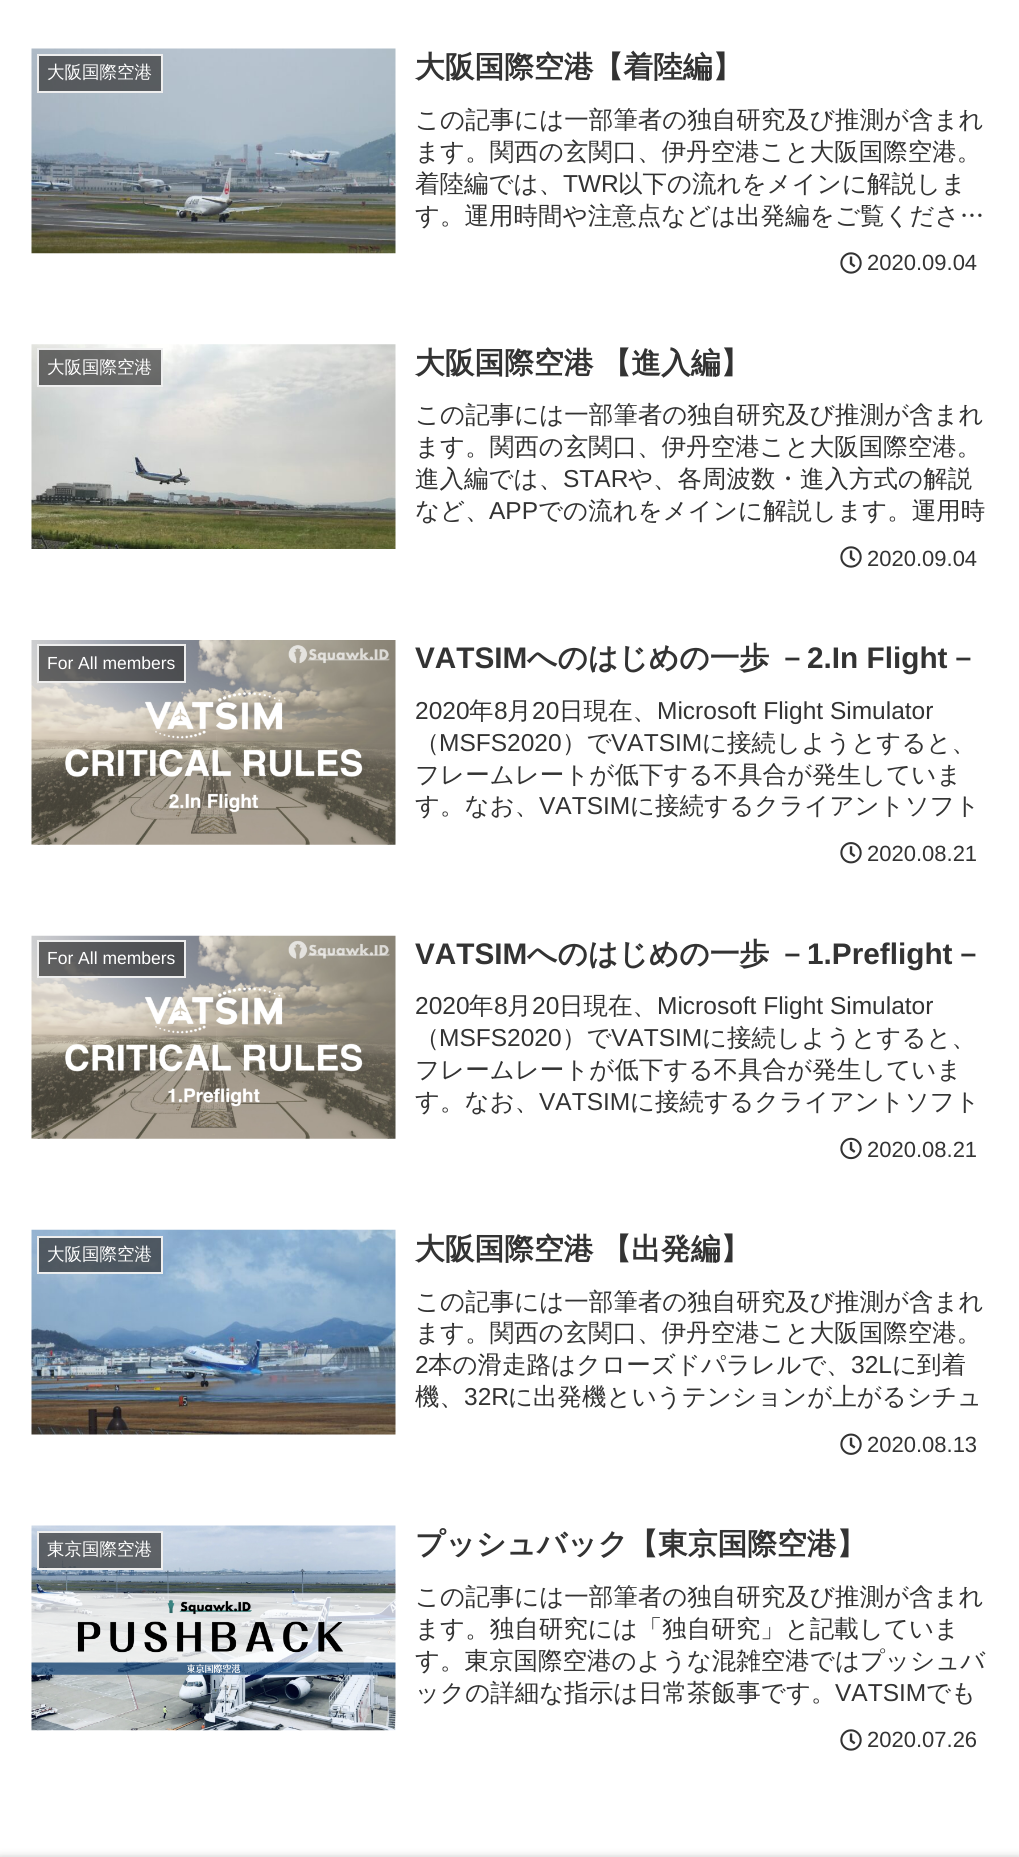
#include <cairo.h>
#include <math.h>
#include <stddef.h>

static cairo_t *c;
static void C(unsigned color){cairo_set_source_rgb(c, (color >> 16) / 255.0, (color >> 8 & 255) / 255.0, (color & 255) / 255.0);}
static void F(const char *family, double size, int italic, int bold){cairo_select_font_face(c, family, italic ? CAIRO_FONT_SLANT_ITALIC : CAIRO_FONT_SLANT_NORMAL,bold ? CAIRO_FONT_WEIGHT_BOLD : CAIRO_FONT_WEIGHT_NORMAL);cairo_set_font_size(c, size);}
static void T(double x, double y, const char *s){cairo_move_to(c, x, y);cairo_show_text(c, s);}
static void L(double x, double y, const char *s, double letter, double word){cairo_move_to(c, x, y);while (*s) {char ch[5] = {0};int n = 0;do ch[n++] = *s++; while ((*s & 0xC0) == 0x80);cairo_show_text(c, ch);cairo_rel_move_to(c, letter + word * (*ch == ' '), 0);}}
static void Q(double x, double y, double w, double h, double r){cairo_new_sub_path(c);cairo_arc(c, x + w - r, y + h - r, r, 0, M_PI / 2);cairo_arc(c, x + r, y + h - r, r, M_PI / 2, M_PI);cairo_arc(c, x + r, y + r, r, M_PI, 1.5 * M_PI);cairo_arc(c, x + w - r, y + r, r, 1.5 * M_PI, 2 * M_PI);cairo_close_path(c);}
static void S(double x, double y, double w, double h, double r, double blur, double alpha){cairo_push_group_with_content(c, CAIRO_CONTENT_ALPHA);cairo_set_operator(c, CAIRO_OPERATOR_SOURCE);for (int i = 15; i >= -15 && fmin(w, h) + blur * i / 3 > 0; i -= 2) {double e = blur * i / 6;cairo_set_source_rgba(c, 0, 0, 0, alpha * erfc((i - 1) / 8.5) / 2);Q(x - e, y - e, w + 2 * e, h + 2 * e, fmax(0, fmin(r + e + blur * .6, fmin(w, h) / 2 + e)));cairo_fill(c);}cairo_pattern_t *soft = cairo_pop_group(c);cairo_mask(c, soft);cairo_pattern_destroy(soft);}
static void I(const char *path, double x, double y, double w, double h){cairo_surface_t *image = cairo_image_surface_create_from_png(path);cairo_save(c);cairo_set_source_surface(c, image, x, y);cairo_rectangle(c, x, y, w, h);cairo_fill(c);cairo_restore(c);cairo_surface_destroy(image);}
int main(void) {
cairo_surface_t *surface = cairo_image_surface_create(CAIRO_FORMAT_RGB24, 1019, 1857);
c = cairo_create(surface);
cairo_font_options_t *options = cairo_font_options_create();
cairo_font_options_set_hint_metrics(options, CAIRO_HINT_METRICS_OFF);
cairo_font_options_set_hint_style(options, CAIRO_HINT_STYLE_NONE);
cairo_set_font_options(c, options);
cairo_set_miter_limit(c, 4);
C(0xffffff);
cairo_paint(c);
I("1.png",31,48,365,206);
cairo_set_source_rgba(c,0.2,0.2,0.2,0.7);
cairo_rectangle(c,38,55,124,37);
cairo_fill_preserve(c);
C(0xeeeeee);
cairo_stroke(c);
F("WenQuanYi Zen Hei Medium",17.5,0,0);
C(0xffffff);
T(47,78,"大阪国際空港");
F("WenQuanYi Zen Hei",29.75,0,1);
C(0x333333);
T(415,77,"大阪国際空港【着陸編】");
F("WenQuanYi Zen Hei Medium",24.5,0,0);
T(415,128,"この記事には一部筆者の独自研究及び推測が含まれ");
T(415,160,"ます。関西の玄関口、伊丹空港こと大阪国際空港。");
T(415,192,"着陸編では、");
F("Liberation Sans",24.5,0,0);
T(563,192,"TWR");
F("WenQuanYi Zen Hei Medium",24.5,0,0);
T(618,192,"以下の流れをメインに解説しま");
T(415,224,"す。運用時間や注意点などは出発編をご覧くださ…");
I("2.png",840,252,22,22);
F("Liberation Sans",22,0,0);
T(867,270,"2020.09.04");
I("3.png",31,344,365,205);
cairo_set_source_rgba(c,0.2,0.2,0.2,0.7);
cairo_rectangle(c,38,349,124,37);
cairo_fill_preserve(c);
C(0xeeeeee);
cairo_stroke(c);
F("WenQuanYi Zen Hei Medium",17.5,0,0);
C(0xffffff);
T(47,373,"大阪国際空港");
F("WenQuanYi Zen Hei",29.75,0,1);
C(0x333333);
L(415,373,"大阪国際空港 【進入編】",0,-1);
F("WenQuanYi Zen Hei Medium",24.5,0,0);
T(415,423,"この記事には一部筆者の独自研究及び推測が含まれ");
T(415,455,"ます。関西の玄関口、伊丹空港こと大阪国際空港。");
T(415,487,"進入編では、");
F("Liberation Sans",24.5,0,0);
T(563,487,"STAR");
F("WenQuanYi Zen Hei Medium",24.5,0,0);
T(628,487,"や、各周波数・進入方式の解説");
T(415,519,"など、");
F("Liberation Sans",24.5,0,0);
T(489,519,"APP");
F("WenQuanYi Zen Hei Medium",24.5,0,0);
T(538,519,"での流れをメインに解説します。運用時");
I("2.png",840,546,22,22);
F("Liberation Sans",22,0,0);
T(867,566,"2020.09.04");
I("4.png",31,640,365,205);
cairo_set_source_rgba(c,0.2,0.2,0.2,0.7);
cairo_rectangle(c,38,645,147,37);
cairo_fill_preserve(c);
C(0xeeeeee);
cairo_stroke(c);
F("Liberation Sans",17.5,0,0);
C(0xffffff);
T(47,669,"For All members");
F("Liberation Sans",29.75,0,1);
C(0x333333);
T(415,668,"VATSIM");
F("WenQuanYi Zen Hei",29.75,0,1);
T(527,668,"へのはじめの一歩");
T(777,668,"－");
F("Liberation Sans",29.75,0,1);
T(807,668,"2.In Flight");
F("WenQuanYi Zen Hei",29.75,0,1);
T(948,668,"－");
F("Liberation Sans",24.5,0,0);
T(415,719,"2020");
F("WenQuanYi Zen Hei Medium",24.5,0,0);
T(469,719,"年");
F("Liberation Sans",24.5,0,0);
T(494,719,"8");
F("WenQuanYi Zen Hei Medium",24.5,0,0);
T(507,719,"月");
F("Liberation Sans",24.5,0,0);
T(532,719,"20");
F("WenQuanYi Zen Hei Medium",24.5,0,0);
T(559,719,"日現在、");
F("Liberation Sans",24.5,0,0);
T(657,719,"Microsoft Flight Simulator");
F("WenQuanYi Zen Hei Medium",24.5,0,0);
T(415,751,"（");
F("Liberation Sans",24.5,0,0);
T(439,751,"MSFS2020");
F("WenQuanYi Zen Hei Medium",24.5,0,0);
T(562,751,"）で");
F("Liberation Sans",24.5,0,0);
T(611,751,"VATSIM");
F("WenQuanYi Zen Hei Medium",24.5,0,0);
T(702,751,"に接続しようとすると、");
T(415,783,"フレームレートが低下する不具合が発生していま");
T(415,814,"す。なお、");
F("Liberation Sans",24.5,0,0);
T(539,814,"VATSIM");
F("WenQuanYi Zen Hei Medium",24.5,0,0);
T(630,814,"に接続するクライアントソフト");
I("5.png",840,842,22,22);
F("Liberation Sans",22,0,0);
T(867,861,"2020.08.21");
I("6.png",31,935,365,204);
cairo_set_source_rgba(c,0.2,0.2,0.2,0.7);
cairo_rectangle(c,38,941,147,36);
cairo_fill_preserve(c);
C(0xeeeeee);
cairo_stroke(c);
F("Liberation Sans",17.5,0,0);
C(0xffffff);
T(47,964,"For All members");
F("Liberation Sans",29.75,0,1);
C(0x333333);
T(415,964,"VATSIM");
F("WenQuanYi Zen Hei",29.75,0,1);
L(527,964,"へのはじめの一歩 －",0,-1);
F("Liberation Sans",29.75,0,1);
T(807,964,"1.Preflight");
F("WenQuanYi Zen Hei",29.75,0,1);
T(953,964,"－");
F("Liberation Sans",24.5,0,0);
T(415,1014,"2020");
F("WenQuanYi Zen Hei Medium",24.5,0,0);
T(469,1014,"年");
F("Liberation Sans",24.5,0,0);
T(494,1014,"8");
F("WenQuanYi Zen Hei Medium",24.5,0,0);
T(507,1014,"月");
F("Liberation Sans",24.5,0,0);
T(532,1014,"20");
F("WenQuanYi Zen Hei Medium",24.5,0,0);
T(559,1014,"日現在、");
F("Liberation Sans",24.5,0,0);
T(657,1014,"Microsoft Flight Simulator");
F("WenQuanYi Zen Hei Medium",24.5,0,0);
T(415,1046,"（");
F("Liberation Sans",24.5,0,0);
T(439,1046,"MSFS2020");
F("WenQuanYi Zen Hei Medium",24.5,0,0);
T(562,1046,"）で");
F("Liberation Sans",24.5,0,0);
T(611,1046,"VATSIM");
F("WenQuanYi Zen Hei Medium",24.5,0,0);
T(702,1046,"に接続しようとすると、");
T(415,1078,"フレームレートが低下する不具合が発生していま");
T(415,1110,"す。なお、");
F("Liberation Sans",24.5,0,0);
T(539,1110,"VATSIM");
F("WenQuanYi Zen Hei Medium",24.5,0,0);
T(630,1110,"に接続するクライアントソフト");
I("7.png",840,1137,22,23);
F("Liberation Sans",22,0,0);
T(867,1157,"2020.08.21");
I("8.png",31,1229,365,206);
cairo_set_source_rgba(c,0.2,0.2,0.2,0.7);
cairo_rectangle(c,38,1237,124,36);
cairo_fill_preserve(c);
C(0xeeeeee);
cairo_stroke(c);
F("WenQuanYi Zen Hei Medium",17.5,0,0);
C(0xffffff);
T(47,1260,"大阪国際空港");
F("WenQuanYi Zen Hei",29.75,0,1);
C(0x333333);
L(415,1259,"大阪国際空港 【出発編】",0,-1);
F("WenQuanYi Zen Hei Medium",24.5,0,0);
T(415,1310,"この記事には一部筆者の独自研究及び推測が含まれ");
T(415,1341,"ます。関西の玄関口、伊丹空港こと大阪国際空港。");
F("Liberation Sans",24.5,0,0);
T(415,1373,"2");
F("WenQuanYi Zen Hei Medium",24.5,0,0);
T(428,1373,"本の滑走路はクローズドパラレルで、");
F("Liberation Sans",24.5,0,0);
T(851,1373,"32L");
F("WenQuanYi Zen Hei Medium",24.5,0,0);
T(892,1373,"に到着");
T(415,1405,"機、");
F("Liberation Sans",24.5,0,0);
T(464,1405,"32R");
F("WenQuanYi Zen Hei Medium",24.5,0,0);
T(508,1405,"に出発機というテンションが上がるシチュ");
I("9.png",840,1433,22,22);
F("Liberation Sans",22,0,0);
T(867,1452,"2020.08.13");
I("10.png",31,1525,365,206);
cairo_set_source_rgba(c,0.2,0.2,0.2,0.7);
cairo_rectangle(c,38,1532,124,37);
cairo_fill_preserve(c);
C(0xeeeeee);
cairo_stroke(c);
F("WenQuanYi Zen Hei Medium",17.5,0,0);
C(0xffffff);
T(47,1555,"東京国際空港");
F("WenQuanYi Zen Hei",29.75,0,1);
C(0x333333);
T(415,1554,"プッシュバック【東京国際空港】");
F("WenQuanYi Zen Hei Medium",24.5,0,0);
T(415,1605,"この記事には一部筆者の独自研究及び推測が含まれ");
T(415,1637,"ます。独自研究には「独自研究」と記載していま");
T(415,1669,"す。東京国際空港のような混雑空港ではプッシュバ");
T(415,1701,"ックの詳細な指示は日常茶飯事です。");
F("Liberation Sans",24.5,0,0);
T(835,1701,"VATSIM");
F("WenQuanYi Zen Hei Medium",24.5,0,0);
T(926,1701,"でも");
I("2.png",840,1729,22,22);
F("Liberation Sans",22,0,0);
T(867,1747,"2020.07.26");
C(0xa9a9a9);
S(0,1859,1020,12,0,4.5,1);
cairo_surface_write_to_png(surface, "o.png");
cairo_font_options_destroy(options);
cairo_destroy(c);
cairo_surface_destroy(surface);
return 0;
}
